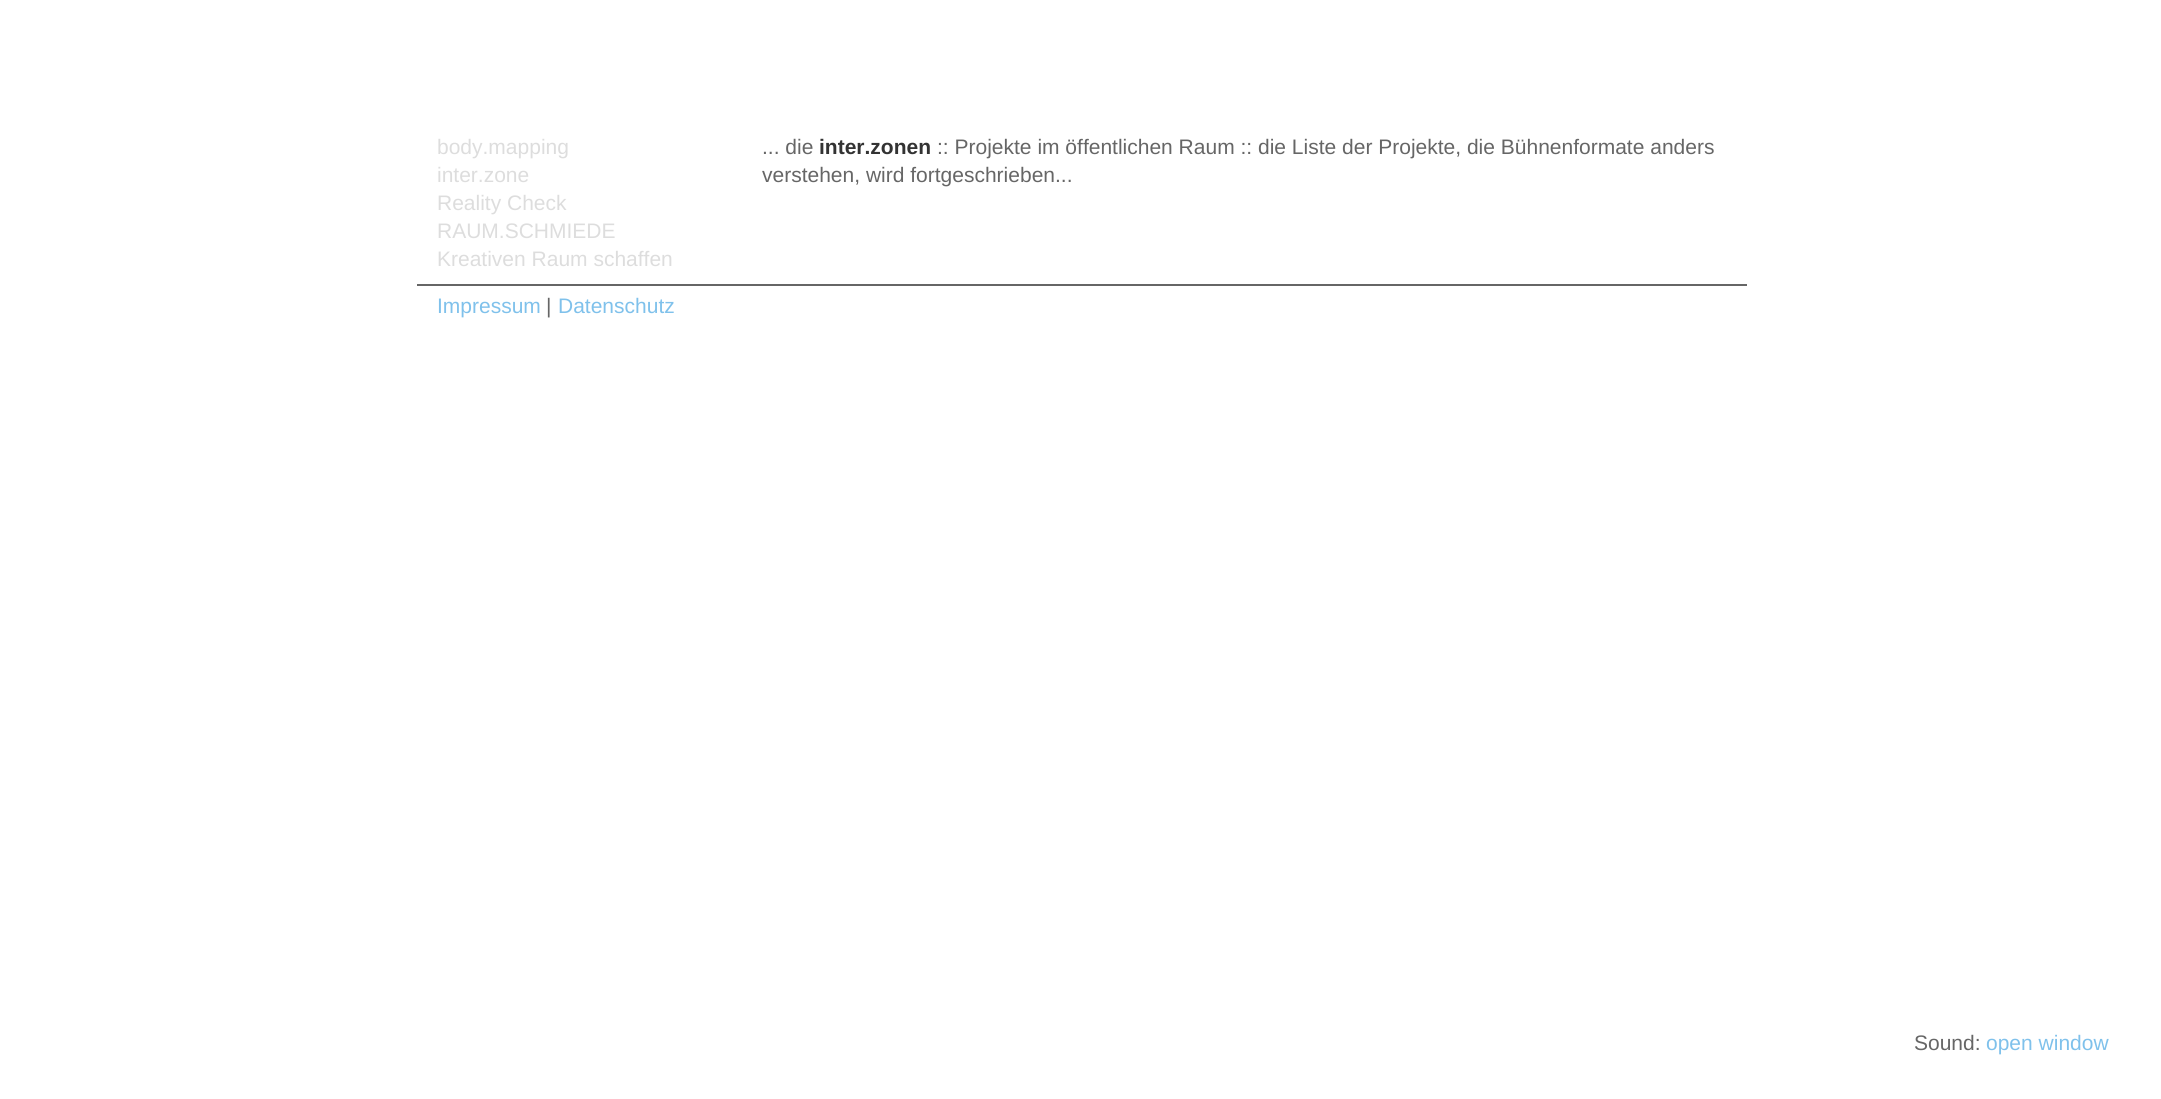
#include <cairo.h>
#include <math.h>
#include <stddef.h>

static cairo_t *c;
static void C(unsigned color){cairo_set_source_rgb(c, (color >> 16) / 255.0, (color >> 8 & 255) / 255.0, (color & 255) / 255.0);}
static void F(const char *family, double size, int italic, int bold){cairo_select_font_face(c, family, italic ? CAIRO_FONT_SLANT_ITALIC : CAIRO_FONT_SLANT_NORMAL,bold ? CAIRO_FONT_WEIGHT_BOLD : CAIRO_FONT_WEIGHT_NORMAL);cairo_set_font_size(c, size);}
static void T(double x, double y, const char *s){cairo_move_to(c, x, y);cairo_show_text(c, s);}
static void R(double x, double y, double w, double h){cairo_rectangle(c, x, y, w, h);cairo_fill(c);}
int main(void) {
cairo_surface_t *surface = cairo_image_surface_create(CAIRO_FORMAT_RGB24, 2161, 1099);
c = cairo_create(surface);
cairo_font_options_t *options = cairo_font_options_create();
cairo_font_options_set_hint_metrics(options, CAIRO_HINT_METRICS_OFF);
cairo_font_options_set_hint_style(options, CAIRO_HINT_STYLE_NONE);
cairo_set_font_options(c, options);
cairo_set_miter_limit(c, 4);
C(0xffffff);
cairo_paint(c);
F("Liberation Sans",21,0,0);
C(0xdddddd);
T(437,154,"body.mapping");
T(437,182,"inter.zone");
T(437,210,"Reality Check");
T(437,238,"RAUM.SCHMIEDE");
T(437,266,"Kreativen Raum schaffen");
C(0x666666);
T(762,154,"... die");
F("Liberation Sans",21,0,1);
C(0x333333);
T(819,154,"inter.zonen");
F("Liberation Sans",21,0,0);
C(0x666666);
T(937,154,":: Projekte im öffentlichen Raum :: die Liste der Projekte, die Bühnenformate anders");
T(762,182,"verstehen, wird fortgeschrieben...");
R(417,284,1330,2);
C(0x7fc1eb);
T(437,313,"Impressum");
C(0x666666);
T(546,313,"|");
C(0x7fc1eb);
T(558,313,"Datenschutz");
C(0x666666);
T(1914,1050,"Sound:");
C(0x7fc1eb);
T(1986,1050,"open window");
cairo_surface_write_to_png(surface, "o.png");
cairo_font_options_destroy(options);
cairo_destroy(c);
cairo_surface_destroy(surface);
return 0;
}
